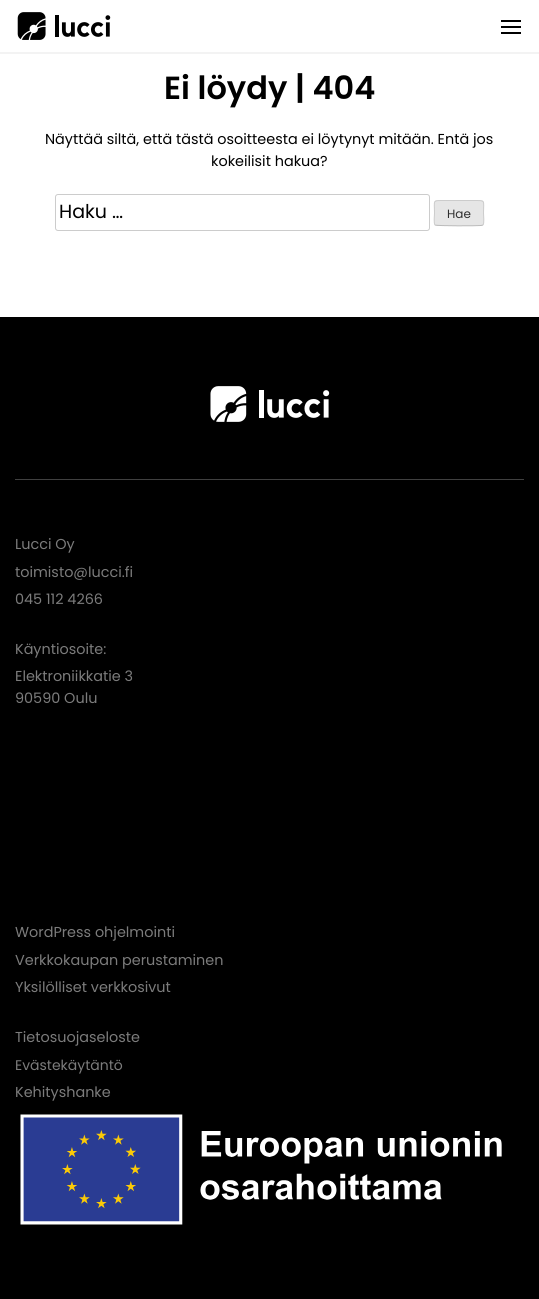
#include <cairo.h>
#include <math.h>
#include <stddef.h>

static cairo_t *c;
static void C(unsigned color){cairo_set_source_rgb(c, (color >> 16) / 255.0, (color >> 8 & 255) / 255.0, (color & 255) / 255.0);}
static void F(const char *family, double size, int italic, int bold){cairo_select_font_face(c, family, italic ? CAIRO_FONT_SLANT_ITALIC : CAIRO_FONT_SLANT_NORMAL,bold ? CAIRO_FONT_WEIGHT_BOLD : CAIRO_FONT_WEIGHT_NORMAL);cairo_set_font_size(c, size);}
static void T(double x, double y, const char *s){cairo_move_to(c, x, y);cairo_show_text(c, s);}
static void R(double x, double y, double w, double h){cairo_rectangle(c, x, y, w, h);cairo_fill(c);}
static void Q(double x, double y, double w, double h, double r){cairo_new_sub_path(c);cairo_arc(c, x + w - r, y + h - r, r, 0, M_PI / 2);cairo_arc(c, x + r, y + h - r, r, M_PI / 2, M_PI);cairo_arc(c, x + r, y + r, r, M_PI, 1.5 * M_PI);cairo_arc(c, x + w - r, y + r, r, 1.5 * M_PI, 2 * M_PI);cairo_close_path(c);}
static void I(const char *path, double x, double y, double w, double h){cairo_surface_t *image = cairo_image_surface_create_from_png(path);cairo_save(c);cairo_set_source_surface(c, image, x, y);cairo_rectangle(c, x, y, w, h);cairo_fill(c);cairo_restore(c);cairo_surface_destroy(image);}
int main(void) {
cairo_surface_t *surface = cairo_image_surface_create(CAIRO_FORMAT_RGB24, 539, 1299);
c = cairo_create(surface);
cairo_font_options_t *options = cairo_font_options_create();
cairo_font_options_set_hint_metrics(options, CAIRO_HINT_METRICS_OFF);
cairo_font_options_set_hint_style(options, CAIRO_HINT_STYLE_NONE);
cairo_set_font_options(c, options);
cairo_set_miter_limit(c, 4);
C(0xffffff);
cairo_paint(c);
C(0xf3f3f3);
R(0,52,539,2);
I("1.png",17,12,94,28);
C(0x000000);
R(501,20,20,2);
R(501,26,20,2);
R(501,32,20,2);
F("Poppins SemiBold",32,0,0);
T(164,99,"Ei löydy | 404");
F("Poppins",14.4,0,0);
T(45,144,"Näyttää siltä, että tästä osoitteesta ei löytynyt mitään. Entä jos");
T(211,166,"kokeilisit hakua?");
Q(55.5,194.5,374,36,2.5);
C(0xcccccc);
cairo_set_line_width(c,1);
cairo_stroke(c);
F("Poppins",19,0,0);
C(0x000000);
T(59,218,"Haku …");
C(0xe6e6e6);
Q(434,200,50,26,3);
cairo_fill(c);
cairo_new_path(c);
cairo_move_to(c,483,225);
cairo_line_to(c,481,225.5);
cairo_curve_to(c,477,226,436.5,226,435,225);
C(0xbbbbbb);
cairo_stroke(c);
cairo_new_path(c);
cairo_move_to(c,435,225);
cairo_curve_to(c,433.5,223,434.5,215.5,434.5,213);
cairo_curve_to(c,434.5,200,432,200.5,444.5,200.5);
cairo_line_to(c,473.5,200.5);
cairo_curve_to(c,486,200.5,483.5,200,483.5,213);
cairo_curve_to(c,483.5,215.5,484.5,223,483,225);
C(0xcccccc);
cairo_stroke(c);
F("Poppins",12,0,0);
C(0x2e2e2e);
T(447,218,"Hae");
C(0x000000);
R(0,317,539,982);
C(0x404040);
R(15,479,509,1);
I("2.png",210,386,120,36);
F("Poppins",14.4,0,0);
C(0x7c7c7c);
T(15,549,"Lucci Oy");
T(15,577,"toimisto@lucci.fi");
T(15,604,"045 112 4266");
T(15,654,"Käyntiosoite:");
T(15,681,"Elektroniikkatie 3");
T(15,703,"90590 Oulu");
T(15,937,"WordPress ohjelmointi");
T(15,965,"Verkkokaupan perustaminen");
T(15,992,"Yksilölliset verkkosivut");
T(15,1042,"Tietosuojaseloste");
F("Poppins",14,0,0);
T(15,1070,"Evästekäytäntö");
F("Poppins",14.4,0,0);
T(15,1097,"Kehityshanke");
I("3.png",20,1114,482,111);
cairo_surface_write_to_png(surface, "o.png");
cairo_font_options_destroy(options);
cairo_destroy(c);
cairo_surface_destroy(surface);
return 0;
}
